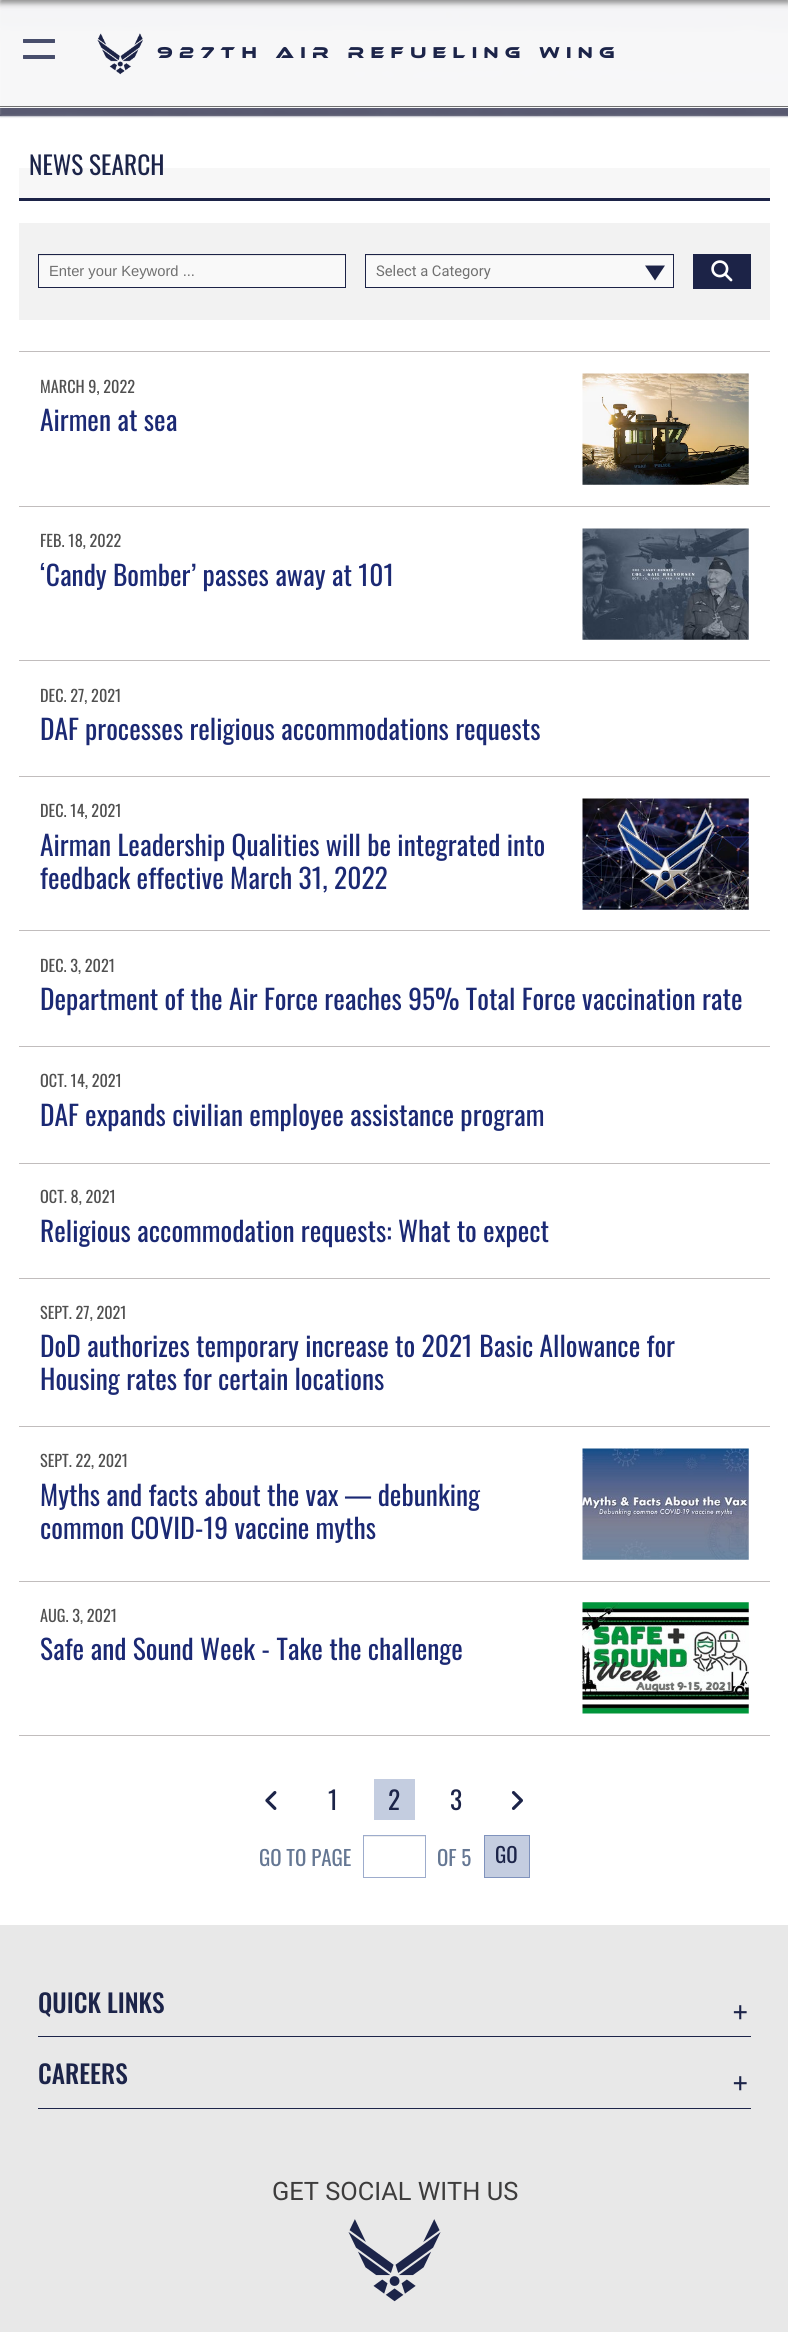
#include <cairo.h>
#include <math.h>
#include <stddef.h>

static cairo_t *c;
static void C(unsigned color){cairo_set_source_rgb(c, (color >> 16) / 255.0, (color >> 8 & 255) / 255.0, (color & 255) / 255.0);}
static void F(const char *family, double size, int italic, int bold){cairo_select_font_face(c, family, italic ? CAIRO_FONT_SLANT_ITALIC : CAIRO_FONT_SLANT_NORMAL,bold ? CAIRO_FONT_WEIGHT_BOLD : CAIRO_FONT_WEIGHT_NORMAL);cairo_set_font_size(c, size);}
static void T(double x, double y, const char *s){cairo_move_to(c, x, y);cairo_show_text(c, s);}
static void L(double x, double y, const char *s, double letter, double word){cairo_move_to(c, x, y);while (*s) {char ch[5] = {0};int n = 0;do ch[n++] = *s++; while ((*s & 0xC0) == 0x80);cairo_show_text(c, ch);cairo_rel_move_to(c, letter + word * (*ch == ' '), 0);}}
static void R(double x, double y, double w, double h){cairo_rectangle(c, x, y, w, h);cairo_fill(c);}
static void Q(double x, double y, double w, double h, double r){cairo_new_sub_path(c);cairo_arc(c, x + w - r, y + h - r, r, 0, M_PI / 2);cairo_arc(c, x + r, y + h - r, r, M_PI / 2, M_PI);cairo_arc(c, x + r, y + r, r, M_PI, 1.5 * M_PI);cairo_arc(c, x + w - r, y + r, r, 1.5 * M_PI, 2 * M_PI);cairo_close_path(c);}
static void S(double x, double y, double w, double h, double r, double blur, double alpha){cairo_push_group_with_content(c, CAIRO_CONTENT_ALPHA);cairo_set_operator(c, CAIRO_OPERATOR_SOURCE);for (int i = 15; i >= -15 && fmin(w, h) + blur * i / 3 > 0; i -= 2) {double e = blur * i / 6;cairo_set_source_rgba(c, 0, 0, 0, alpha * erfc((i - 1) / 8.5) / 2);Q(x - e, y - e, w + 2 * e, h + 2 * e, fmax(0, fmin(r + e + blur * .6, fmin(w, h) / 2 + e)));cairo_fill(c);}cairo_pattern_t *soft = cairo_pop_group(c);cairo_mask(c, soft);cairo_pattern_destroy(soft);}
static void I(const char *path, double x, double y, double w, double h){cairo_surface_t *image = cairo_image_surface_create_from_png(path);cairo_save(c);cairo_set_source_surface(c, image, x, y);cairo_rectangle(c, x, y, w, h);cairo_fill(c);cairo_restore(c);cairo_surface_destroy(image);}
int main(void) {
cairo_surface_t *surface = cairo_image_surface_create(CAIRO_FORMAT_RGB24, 788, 2332);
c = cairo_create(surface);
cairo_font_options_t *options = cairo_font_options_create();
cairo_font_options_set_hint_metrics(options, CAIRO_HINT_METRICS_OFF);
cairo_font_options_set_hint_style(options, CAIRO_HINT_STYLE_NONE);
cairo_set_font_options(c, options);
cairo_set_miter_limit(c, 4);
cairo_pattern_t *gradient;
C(0xffffff);
cairo_paint(c);
C(0x494f6c);
R(0,0,788,116);
I("1.png",0,0,788,116);
C(0x1c2347);
S(0,-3,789,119,0,1,.7);
cairo_set_source_rgba(c,1,1,1,0.95);
R(0,0,788,108);
C(0x191919);
S(0,-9,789,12,0,3,.5);
C(0x707070);
R(0,106,788,1);
C(0x484e6c);
Q(23,39,32,4,.5);
cairo_fill(c);
Q(23,55,32,4,.5);
cairo_fill(c);
I("2.png",97,33,46,42);
F("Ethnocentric",16.25,0,0);
C(0x1c2449);
L(157,58,"927th Air Refueling Wing",6.3,0);
gradient = cairo_pattern_create_linear(394,149,394,200);
cairo_pattern_add_color_stop_rgba(gradient,0,1,1,1,1);
cairo_pattern_add_color_stop_rgba(gradient,.37,1,1,1,1);
cairo_pattern_add_color_stop_rgba(gradient,.37,0.969,0.969,0.969,1);
cairo_pattern_add_color_stop_rgba(gradient,1,0.969,0.969,0.969,1);
cairo_set_source(c,gradient);
cairo_pattern_destroy(gradient);
R(19,168,751,30);
F("Oswald",25.4,0,0);
C(0x1c2449);
T(29,175,"NEWS SEARCH");
C(0x1c2347);
R(19,198,751,3);
C(0xf2f2f2);
R(19,223,751,97);
C(0xf9f9f9);
R(39,256,306,31);
C(0xe6e6e6);
R(39,255,306,1);
cairo_rectangle(c,38.5,254.5,307,33);
C(0x1c2347);
cairo_set_line_width(c,1);
cairo_stroke(c);
F("Liberation Sans",14.75,0,0);
C(0x707070);
T(49,276,"Enter your Keyword ...");
C(0xf9f9f9);
R(366,256,307,31);
C(0xe6e6e6);
R(366,255,307,1);
cairo_rectangle(c,365.5,254.5,308,33);
C(0x1c2347);
cairo_stroke(c);
F("Roboto",14.75,0,0);
C(0x707070);
T(376,276,"Select a Category");
C(0x1c2347);
cairo_new_path(c);
cairo_move_to(c,645,265.5);
cairo_line_to(c,665,265.5);
cairo_line_to(c,655,280.5);
cairo_close_path(c);
cairo_fill(c);
R(693,254,58,35);
I("3.png",711,260,22,22);
C(0xc1bdbd);
R(19,351,751,1);
F("Oswald",16.25,0,0);
C(0x505050);
T(40,393,"MARCH 9, 2022");
F("Oswald",27.5,0,0);
C(0x1b2974);
T(40,431,"Airmen at sea");
I("4.png",582,373,167,112);
C(0xc1bdbd);
R(19,506,751,1);
F("Oswald",16.25,0,0);
C(0x505050);
T(40,547,"FEB. 18, 2022");
F("Oswald",27.5,0,0);
C(0x1b2974);
T(40,586,"‘Candy Bomber’ passes away at 101");
I("5.png",582,528,167,112);
C(0xc1bdbd);
R(19,660,751,1);
F("Oswald",16.25,0,0);
C(0x505050);
T(40,702,"DEC. 27, 2021");
F("Oswald",27.5,0,0);
C(0x1b2974);
T(40,740,"DAF processes religious accommodations requests");
C(0xc1bdbd);
R(19,776,751,1);
F("Oswald",16.25,0,0);
C(0x505050);
T(40,817,"DEC. 14, 2021");
F("Oswald",27.5,0,0);
C(0x1b2974);
T(40,856,"Airman Leadership Qualities will be integrated into");
T(40,889,"feedback effective March 31, 2022");
I("6.png",582,798,167,112);
C(0xc1bdbd);
R(19,930,751,1);
F("Oswald",16.25,0,0);
C(0x505050);
T(40,972,"DEC. 3, 2021");
F("Oswald",27.5,0,0);
C(0x1b2974);
T(40,1010,"Department of the Air Force reaches 95% Total Force vaccination rate");
C(0xc1bdbd);
R(19,1046,751,1);
F("Oswald",16.25,0,0);
C(0x505050);
T(40,1087,"OCT. 14, 2021");
F("Oswald",27.5,0,0);
C(0x1b2974);
T(40,1126,"DAF expands civilian employee assistance program");
C(0xc1bdbd);
R(19,1163,751,1);
F("Oswald",16.25,0,0);
C(0x505050);
T(40,1203,"OCT. 8, 2021");
F("Oswald",27.5,0,0);
C(0x1b2974);
T(40,1242,"Religious accommodation requests: What to expect");
C(0xc1bdbd);
R(19,1278,751,1);
F("Oswald",16.25,0,0);
C(0x505050);
T(40,1319,"SEPT. 27, 2021");
F("Oswald",27.5,0,0);
C(0x1b2974);
T(40,1357,"DoD authorizes temporary increase to 2021 Basic Allowance for");
T(40,1390,"Housing rates for certain locations");
C(0xc1bdbd);
R(19,1426,751,1);
F("Oswald",16.25,0,0);
C(0x505050);
T(40,1467,"SEPT. 22, 2021");
F("Oswald",27.5,0,0);
C(0x1b2974);
T(40,1506,"Myths and facts about the vax — debunking");
T(40,1539,"common COVID-19 vaccine myths");
I("7.png",582,1448,167,112);
C(0xc1bdbd);
R(19,1581,751,1);
R(19,1735,751,1);
F("Oswald",16.25,0,0);
C(0x505050);
T(40,1622,"AUG. 3, 2021");
F("Oswald",27.5,0,0);
C(0x1b2974);
T(40,1660,"Safe and Sound Week - Take the challenge");
I("8.png",582,1602,167,112);
I("9.png",265,1791,12,19);
F("Oswald",25.4,0,0);
C(0x1c2449);
T(328,1810,"1");
C(0xc4cde0);
R(374,1779,41,41);
C(0x1c2449);
T(388,1810,"2");
T(450,1810,"3");
I("10.png",511,1791,12,19);
F("Oswald",21,0,0);
C(0x657793);
T(259,1866,"GO TO PAGE");
C(0xececec);
R(364,1836,61,1);
cairo_rectangle(c,363.5,1835.5,62,42);
C(0x9daccc);
cairo_stroke(c);
C(0x657793);
T(437,1866,"OF 5");
C(0xc4cde0);
cairo_rectangle(c,484.5,1835.5,45,42);
cairo_fill_preserve(c);
C(0x8093bd);
cairo_stroke(c);
C(0x1c2449);
T(495,1863,"GO");
C(0xe8e8e8);
R(0,1925,788,407);
C(0x1c2449);
R(38,2036,713,1);
F("Oswald Medium",25.4,0,0);
T(38,2013,"QUICK LINKS");
F("Oswald Light",38,0,0);
T(733,2028,"+");
R(38,2108,713,1);
F("Oswald Medium",25.4,0,0);
T(38,2084,"CAREERS");
F("Oswald Light",38,0,0);
T(733,2099,"+");
F("Roboto",25.4,0,0);
C(0x3d3c3c);
T(272,2200,"GET SOCIAL WITH US");
I("11.png",348,2219,93,83);
cairo_surface_write_to_png(surface, "o.png");
cairo_font_options_destroy(options);
cairo_destroy(c);
cairo_surface_destroy(surface);
return 0;
}
